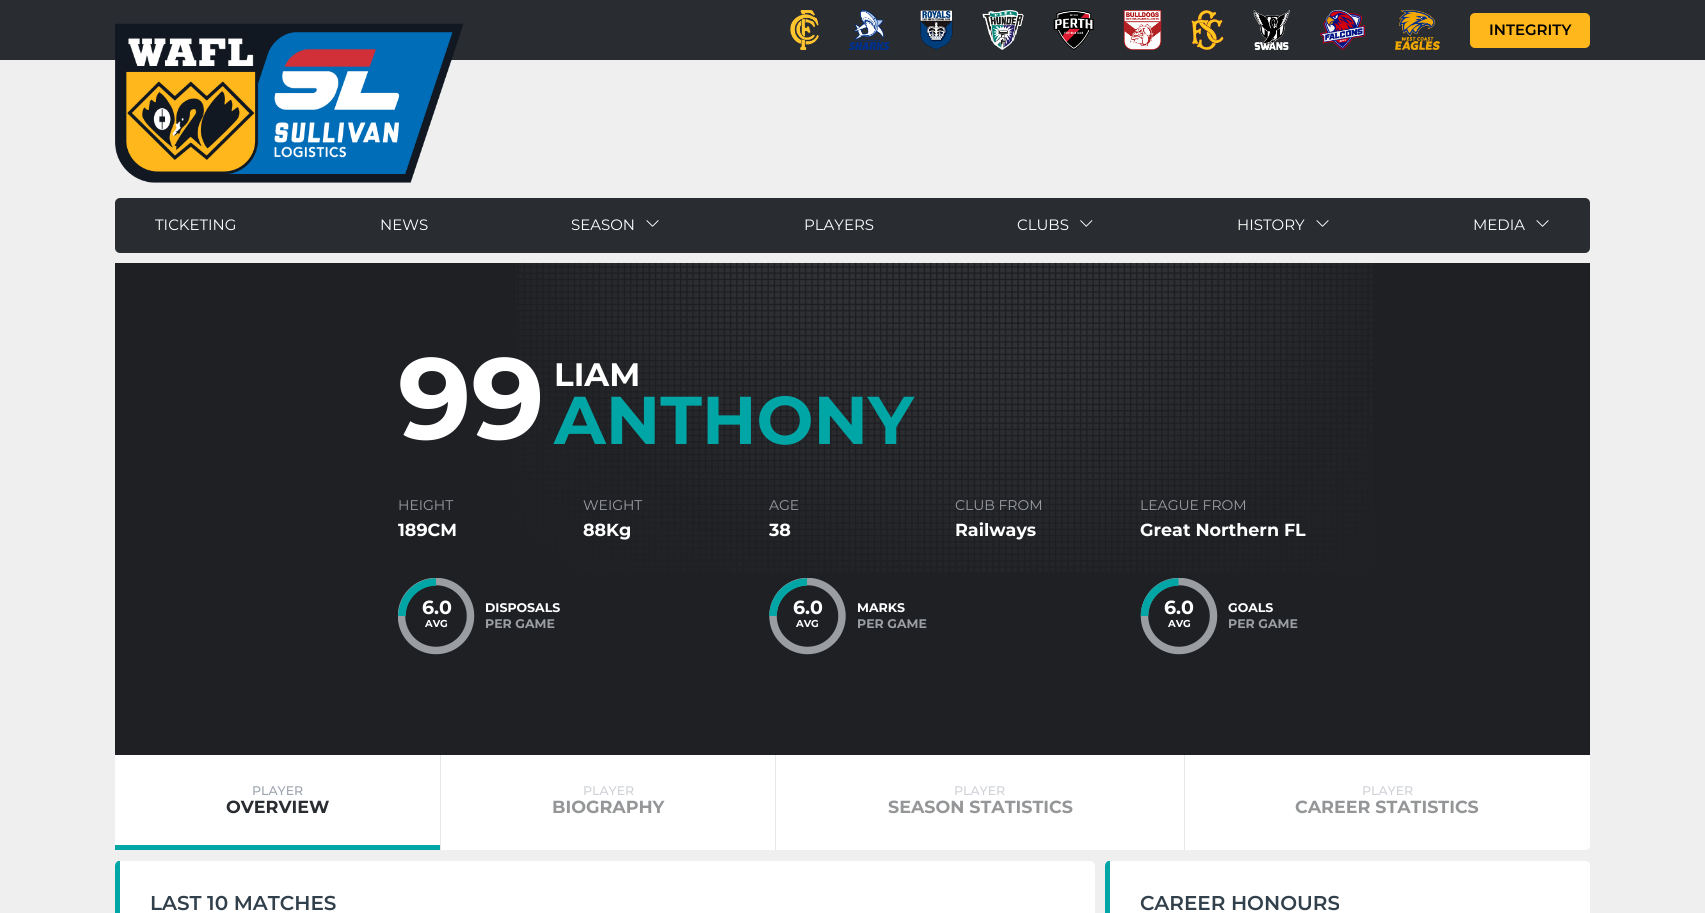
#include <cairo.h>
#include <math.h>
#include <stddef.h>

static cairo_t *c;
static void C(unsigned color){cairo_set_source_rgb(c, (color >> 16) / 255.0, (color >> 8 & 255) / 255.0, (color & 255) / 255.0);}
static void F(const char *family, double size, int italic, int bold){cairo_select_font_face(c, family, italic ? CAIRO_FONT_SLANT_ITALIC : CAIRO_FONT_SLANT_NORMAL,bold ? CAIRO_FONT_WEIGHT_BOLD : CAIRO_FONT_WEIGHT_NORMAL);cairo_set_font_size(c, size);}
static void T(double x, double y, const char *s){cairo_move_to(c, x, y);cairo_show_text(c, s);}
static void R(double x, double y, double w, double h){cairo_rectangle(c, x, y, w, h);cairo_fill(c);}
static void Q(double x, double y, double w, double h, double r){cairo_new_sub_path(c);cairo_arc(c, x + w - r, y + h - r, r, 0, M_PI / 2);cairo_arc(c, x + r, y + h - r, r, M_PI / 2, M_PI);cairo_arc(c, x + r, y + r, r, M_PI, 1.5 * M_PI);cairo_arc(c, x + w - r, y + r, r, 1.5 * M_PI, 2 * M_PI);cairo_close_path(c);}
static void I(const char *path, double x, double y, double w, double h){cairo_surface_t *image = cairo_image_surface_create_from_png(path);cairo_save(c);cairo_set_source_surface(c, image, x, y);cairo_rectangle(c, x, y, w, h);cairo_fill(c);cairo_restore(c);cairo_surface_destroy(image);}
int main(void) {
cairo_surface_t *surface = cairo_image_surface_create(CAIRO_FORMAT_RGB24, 1705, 913);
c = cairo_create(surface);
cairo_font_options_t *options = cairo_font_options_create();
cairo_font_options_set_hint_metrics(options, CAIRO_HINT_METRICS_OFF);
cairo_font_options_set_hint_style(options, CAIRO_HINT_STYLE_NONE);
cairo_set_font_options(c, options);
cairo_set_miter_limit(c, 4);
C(0xefefef);
cairo_paint(c);
C(0x292c31);
R(0,0,1705,60);
I("1.png",115,23,349,160);
I("2.png",790,10,29,40);
I("3.png",848,10,42,40);
I("4.png",920,10,33,40);
I("5.png",982,10,42,40);
I("6.png",1053,10,41,40);
I("7.png",1123,10,39,40);
I("8.png",1191,10,33,40);
I("9.png",1253,10,37,40);
I("10.png",1320,10,45,40);
I("11.png",1395,10,45,40);
C(0xffb71c);
Q(1470,13,120,35,5);
cairo_fill(c);
F("Montserrat SemiBold",15,0,0);
C(0x000000);
T(1489,35,"INTEGRITY");
C(0x292c31);
Q(115,198,1475,55,5);
cairo_fill(c);
F("Montserrat",15,0,0);
C(0xffffff);
T(155,230,"TICKETING");
T(380,230,"NEWS");
T(571,230,"SEASON");
I("12.png",646,220,13,7);
T(804,230,"PLAYERS");
T(1017,230,"CLUBS");
I("13.png",1080,220,13,7);
T(1237,230,"HISTORY");
I("12.png",1316,220,13,7);
T(1473,230,"MEDIA");
I("12.png",1536,220,13,7);
C(0x1e2024);
R(115,263,1475,492);
I("14.png",516,262,857,311);
F("Montserrat",115,0,1);
C(0xffffff);
T(398,439,"99");
F("Montserrat",32.5,0,1);
T(554,386,"LIAM");
F("Montserrat",67.5,0,1);
C(0x00a6a6);
T(554,444,"ANTHONY");
F("Montserrat",14,0,0);
C(0x9a9da2);
T(398,510,"HEIGHT");
F("Montserrat",17.5,0,1);
C(0xffffff);
T(398,536,"189CM");
F("Montserrat",14,0,0);
C(0x9a9da2);
T(583,510,"WEIGHT");
F("Montserrat",17.5,0,1);
C(0xffffff);
T(583,536,"88Kg");
F("Montserrat",14,0,0);
C(0x9a9da2);
T(769,510,"AGE");
F("Montserrat",17.5,0,1);
C(0xffffff);
T(769,536,"38");
F("Montserrat",14,0,0);
C(0x9a9da2);
T(955,510,"CLUB FROM");
F("Montserrat",17.5,0,1);
C(0xffffff);
T(955,536,"Railways");
F("Montserrat",14,0,0);
C(0x9a9da2);
T(1140,510,"LEAGUE FROM");
F("Montserrat",17.5,0,1);
C(0xffffff);
T(1140,536,"Great Northern FL");
cairo_save(c);
cairo_rectangle(c,398,578,77,77);
cairo_clip(c);
cairo_arc(c,436,616,34.5,0,2 * M_PI);
C(0x9a9da2);
cairo_set_line_width(c,7.5);
cairo_stroke(c);
cairo_restore(c);
cairo_new_path(c);
cairo_move_to(c,402,616);
cairo_curve_to(c,402,597.5,417,582,436,582);
C(0x00a6a6);
cairo_set_line_width(c,7.5);
cairo_stroke(c);
F("Montserrat",19,0,1);
C(0xffffff);
T(422,614,"6.0");
F("Montserrat",10,0,1);
T(425,627,"AVG");
F("Montserrat",12.5,0,1);
T(485,612,"DISPOSALS");
C(0x9a9da2);
T(485,628,"PER GAME");
cairo_save(c);
cairo_rectangle(c,769,578,77,77);
cairo_clip(c);
cairo_arc(c,807.5,616,34.5,0,2 * M_PI);
cairo_stroke(c);
cairo_restore(c);
cairo_new_path(c);
cairo_move_to(c,773,616);
cairo_curve_to(c,773,597.5,788.5,582,807,582);
C(0x00a6a6);
cairo_stroke(c);
F("Montserrat",19,0,1);
C(0xffffff);
T(793,614,"6.0");
F("Montserrat",10,0,1);
T(796,627,"AVG");
F("Montserrat",12.5,0,1);
T(857,612,"MARKS");
C(0x9a9da2);
T(857,628,"PER GAME");
cairo_save(c);
cairo_rectangle(c,1140,578,78,77);
cairo_clip(c);
cairo_arc(c,1179,616,34.5,0,2 * M_PI);
cairo_stroke(c);
cairo_restore(c);
cairo_new_path(c);
cairo_move_to(c,1144.5,616);
cairo_curve_to(c,1144.5,597.5,1159.5,582,1178.5,582);
C(0x00a6a6);
cairo_stroke(c);
F("Montserrat",19,0,1);
C(0xffffff);
T(1164,614,"6.0");
F("Montserrat",10,0,1);
T(1168,627,"AVG");
F("Montserrat",12.5,0,1);
T(1228,612,"GOALS");
C(0x9a9da2);
T(1228,628,"PER GAME");
C(0xffffff);
cairo_new_path(c);
cairo_move_to(c,115,755);
cairo_line_to(c,1590,755);
cairo_line_to(c,1590,845);
cairo_curve_to(c,1590,848,1588,850,1585,850);
cairo_line_to(c,120,850);
cairo_curve_to(c,117,850,115,848,115,845);
cairo_close_path(c);
cairo_fill(c);
C(0xe5e7eb);
R(440,755,1,95);
C(0x00a6a6);
R(115,845,325,5);
F("Montserrat Medium",12.5,0,0);
C(0x9ca3af);
T(252,795,"PLAYER");
F("Montserrat",17.5,0,1);
C(0x292c31);
T(226,813,"OVERVIEW");
C(0xe5e7eb);
R(775,755,1,95);
F("Montserrat Medium",12.5,0,0);
C(0xced1d7);
T(583,795,"PLAYER");
F("Montserrat",17.5,0,1);
C(0x949698);
T(552,813,"BIOGRAPHY");
C(0xe5e7eb);
R(1184,755,1,95);
F("Montserrat Medium",12.5,0,0);
C(0xced1d7);
T(954,795,"PLAYER");
F("Montserrat",17.5,0,1);
C(0x949698);
T(888,813,"SEASON STATISTICS");
F("Montserrat Medium",12.5,0,0);
C(0xced1d7);
T(1362,795,"PLAYER");
F("Montserrat",17.5,0,1);
C(0x949698);
T(1295,813,"CAREER STATISTICS");
C(0xffffff);
Q(115,861,980,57,5);
cairo_fill(c);
C(0x00a6a6);
cairo_new_path(c);
cairo_move_to(c,115,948);
cairo_line_to(c,115,866);
cairo_curve_to(c,115,864,116,862,118,861);
cairo_line_to(c,120,861);
cairo_line_to(c,120,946);
cairo_line_to(c,121,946);
cairo_close_path(c);
cairo_fill(c);
F("Montserrat SemiBold",20,0,0);
C(0x31404b);
T(150,910,"LAST 10 MATCHES");
C(0xffffff);
Q(1105,861,485,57,5);
cairo_fill(c);
C(0x00a6a6);
cairo_new_path(c);
cairo_move_to(c,1105,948);
cairo_line_to(c,1105,866);
cairo_curve_to(c,1105,864,1106,862,1108,861);
cairo_line_to(c,1110,861);
cairo_line_to(c,1110,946);
cairo_line_to(c,1111,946);
cairo_close_path(c);
cairo_fill(c);
C(0x31404b);
T(1140,910,"CAREER HONOURS");
cairo_surface_write_to_png(surface, "o.png");
cairo_font_options_destroy(options);
cairo_destroy(c);
cairo_surface_destroy(surface);
return 0;
}
